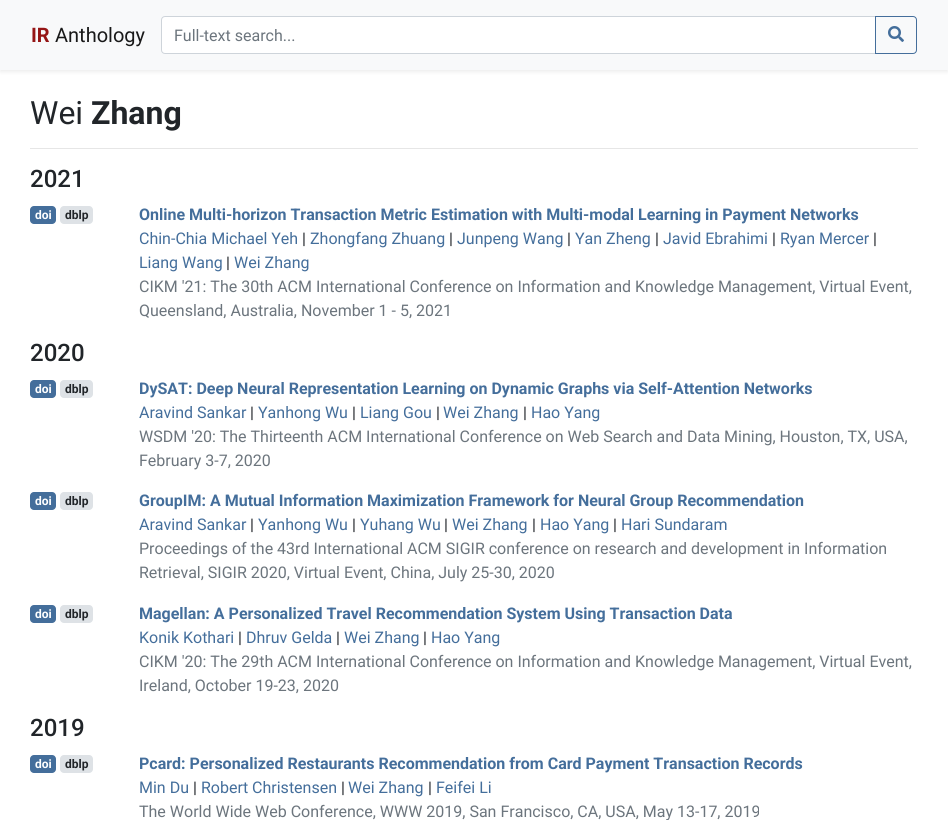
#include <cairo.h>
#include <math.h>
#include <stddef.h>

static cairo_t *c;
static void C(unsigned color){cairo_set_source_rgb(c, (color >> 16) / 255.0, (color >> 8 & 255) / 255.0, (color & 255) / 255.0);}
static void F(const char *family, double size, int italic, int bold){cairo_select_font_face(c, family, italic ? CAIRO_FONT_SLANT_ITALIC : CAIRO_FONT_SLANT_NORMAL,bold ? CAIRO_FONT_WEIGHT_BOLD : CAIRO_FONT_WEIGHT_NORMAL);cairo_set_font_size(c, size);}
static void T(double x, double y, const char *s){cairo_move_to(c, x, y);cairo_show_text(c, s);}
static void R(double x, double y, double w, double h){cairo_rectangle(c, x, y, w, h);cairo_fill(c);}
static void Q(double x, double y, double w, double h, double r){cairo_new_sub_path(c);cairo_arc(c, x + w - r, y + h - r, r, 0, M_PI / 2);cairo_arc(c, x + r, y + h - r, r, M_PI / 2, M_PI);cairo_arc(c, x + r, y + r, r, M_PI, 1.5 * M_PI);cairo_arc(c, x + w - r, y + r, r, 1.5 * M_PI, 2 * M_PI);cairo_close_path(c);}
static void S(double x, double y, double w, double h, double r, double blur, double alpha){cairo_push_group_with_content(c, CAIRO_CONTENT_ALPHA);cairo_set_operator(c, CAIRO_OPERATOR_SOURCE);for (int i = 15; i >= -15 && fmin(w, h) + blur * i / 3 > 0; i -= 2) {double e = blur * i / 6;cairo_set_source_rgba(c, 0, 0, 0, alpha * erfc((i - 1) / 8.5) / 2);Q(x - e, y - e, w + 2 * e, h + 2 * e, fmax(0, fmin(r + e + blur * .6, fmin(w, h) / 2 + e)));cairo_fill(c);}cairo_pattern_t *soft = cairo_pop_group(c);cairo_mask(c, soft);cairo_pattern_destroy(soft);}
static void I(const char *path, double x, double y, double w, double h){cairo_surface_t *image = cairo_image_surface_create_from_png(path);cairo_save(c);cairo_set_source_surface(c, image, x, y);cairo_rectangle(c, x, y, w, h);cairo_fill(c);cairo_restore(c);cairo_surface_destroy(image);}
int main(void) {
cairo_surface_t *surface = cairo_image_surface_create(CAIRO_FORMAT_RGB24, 948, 820);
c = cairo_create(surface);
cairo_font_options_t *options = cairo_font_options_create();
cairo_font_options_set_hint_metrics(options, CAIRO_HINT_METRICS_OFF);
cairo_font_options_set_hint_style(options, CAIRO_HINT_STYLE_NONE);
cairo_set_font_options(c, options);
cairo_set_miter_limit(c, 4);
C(0xffffff);
cairo_paint(c);
C(0x000000);
S(0,2,948,70,0,2,.07);
C(0xf8f9fa);
R(0,0,948,70);
F("Roboto",20,0,1);
C(0x951515);
T(31,42,"IR");
F("Roboto",20,0,0);
C(0x191919);
T(55,42,"Anthology");
C(0xffffff);
cairo_new_path(c);
cairo_move_to(c,165,16.5);
cairo_line_to(c,875.5,16.5);
cairo_line_to(c,875.5,53.5);
cairo_line_to(c,165,53.5);
cairo_curve_to(c,163,53.5,161.5,52,161.5,50);
cairo_line_to(c,161.5,20);
cairo_curve_to(c,161.5,18,163,16.5,165,16.5);
cairo_close_path(c);
cairo_fill_preserve(c);
C(0xced4da);
cairo_set_line_width(c,1);
cairo_stroke(c);
F("Roboto",16,0,0);
C(0x6c757d);
T(174,41,"Full-text search...");
cairo_new_path(c);
cairo_move_to(c,875.5,16.5);
cairo_line_to(c,913,16.5);
cairo_curve_to(c,915,16.5,916.5,18,916.5,20);
cairo_line_to(c,916.5,50);
cairo_curve_to(c,916.5,52,915,53.5,913,53.5);
cairo_line_to(c,875.5,53.5);
cairo_close_path(c);
C(0x446e9b);
cairo_stroke(c);
I("1.png",888,26,16,16);
F("Roboto",32,0,0);
C(0x212529);
T(30,124,"Wei");
F("Roboto",32,0,1);
T(91,124,"Zhang");
C(0xe6e6e6);
R(30,148,888,1);
F("Roboto Medium",24,0,0);
C(0x212529);
T(30,187,"2021");
C(0x446e9b);
Q(30,206,26,18,4);
cairo_fill(c);
F("Roboto",12,0,1);
C(0xffffff);
T(35,219,"doi");
C(0xdee2e6);
Q(60,206,33,18,4);
cairo_fill(c);
C(0x212529);
T(65,219,"dblp");
F("Roboto",16,0,1);
C(0x446e9b);
T(139,220,"Online Multi-horizon Transaction Metric Estimation with Multi-modal Learning in Payment Networks");
F("Roboto",16,0,0);
T(139,244,"Chin-Chia Michael Yeh");
C(0x212529);
T(302,244,"|");
C(0x446e9b);
T(310,244,"Zhongfang Zhuang");
C(0x212529);
T(449,244,"|");
C(0x446e9b);
T(457,244,"Junpeng Wang");
C(0x212529);
T(567,244,"|");
C(0x446e9b);
T(575,244,"Yan Zheng");
C(0x212529);
T(655,244,"|");
C(0x446e9b);
T(663,244,"Javid Ebrahimi");
C(0x212529);
T(772,244,"|");
C(0x446e9b);
T(780,244,"Ryan Mercer");
C(0x212529);
T(873,244,"|");
C(0x446e9b);
T(139,268,"Liang Wang");
C(0x212529);
T(226,268,"|");
C(0x446e9b);
T(234,268,"Wei Zhang");
C(0x6c757d);
T(139,292,"CIKM '21: The 30th ACM International Conference on Information and Knowledge Management, Virtual Event,");
T(139,316,"Queensland, Australia, November 1 - 5, 2021");
F("Roboto Medium",24,0,0);
C(0x212529);
T(30,361,"2020");
C(0x446e9b);
Q(30,380,26,18,4);
cairo_fill(c);
F("Roboto",12,0,1);
C(0xffffff);
T(35,393,"doi");
C(0xdee2e6);
Q(60,380,33,18,4);
cairo_fill(c);
C(0x212529);
T(65,393,"dblp");
F("Roboto",16,0,1);
C(0x446e9b);
T(139,394,"DySAT: Deep Neural Representation Learning on Dynamic Graphs via Self-Attention Networks");
F("Roboto",16,0,0);
T(139,418,"Aravind Sankar");
C(0x212529);
T(250,418,"|");
C(0x446e9b);
T(258,418,"Yanhong Wu");
C(0x212529);
T(352,418,"|");
C(0x446e9b);
T(360,418,"Liang Gou");
C(0x212529);
T(436,418,"|");
C(0x446e9b);
T(443,418,"Wei Zhang");
C(0x212529);
T(523,418,"|");
C(0x446e9b);
T(531,418,"Hao Yang");
C(0x6c757d);
T(139,442,"WSDM '20: The Thirteenth ACM International Conference on Web Search and Data Mining, Houston, TX, USA,");
T(139,466,"February 3-7, 2020");
C(0x446e9b);
Q(30,492,26,18,4);
cairo_fill(c);
F("Roboto",12,0,1);
C(0xffffff);
T(35,505,"doi");
C(0xdee2e6);
Q(60,492,33,18,4);
cairo_fill(c);
C(0x212529);
T(65,505,"dblp");
F("Roboto",16,0,1);
C(0x446e9b);
T(139,506,"GroupIM: A Mutual Information Maximization Framework for Neural Group Recommendation");
F("Roboto",16,0,0);
T(139,530,"Aravind Sankar");
C(0x212529);
T(250,530,"|");
C(0x446e9b);
T(258,530,"Yanhong Wu");
C(0x212529);
T(352,530,"|");
C(0x446e9b);
T(360,530,"Yuhang Wu");
C(0x212529);
T(444,530,"|");
C(0x446e9b);
T(452,530,"Wei Zhang");
C(0x212529);
T(532,530,"|");
C(0x446e9b);
T(540,530,"Hao Yang");
C(0x212529);
T(613,530,"|");
C(0x446e9b);
T(621,530,"Hari Sundaram");
C(0x6c757d);
T(139,554,"Proceedings of the 43rd International ACM SIGIR conference on research and development in Information");
T(139,578,"Retrieval, SIGIR 2020, Virtual Event, China, July 25-30, 2020");
C(0x446e9b);
Q(30,605,26,18,4);
cairo_fill(c);
F("Roboto",12,0,1);
C(0xffffff);
T(35,618,"doi");
C(0xdee2e6);
Q(60,605,33,18,4);
cairo_fill(c);
C(0x212529);
T(65,618,"dblp");
F("Roboto",16,0,1);
C(0x446e9b);
T(139,619,"Magellan: A Personalized Travel Recommendation System Using Transaction Data");
F("Roboto",16,0,0);
T(139,643,"Konik Kothari");
C(0x212529);
T(238,643,"|");
C(0x446e9b);
T(246,643,"Dhruv Gelda");
C(0x212529);
T(336,643,"|");
C(0x446e9b);
T(344,643,"Wei Zhang");
C(0x212529);
T(423,643,"|");
C(0x446e9b);
T(431,643,"Hao Yang");
C(0x6c757d);
T(139,667,"CIKM '20: The 29th ACM International Conference on Information and Knowledge Management, Virtual Event,");
T(139,691,"Ireland, October 19-23, 2020");
F("Roboto Medium",24,0,0);
C(0x212529);
T(30,736,"2019");
C(0x446e9b);
Q(30,755,26,18,4);
cairo_fill(c);
F("Roboto",12,0,1);
C(0xffffff);
T(35,768,"doi");
C(0xdee2e6);
Q(60,755,33,18,4);
cairo_fill(c);
C(0x212529);
T(65,768,"dblp");
F("Roboto",16,0,1);
C(0x446e9b);
T(139,769,"Pcard: Personalized Restaurants Recommendation from Card Payment Transaction Records");
F("Roboto",16,0,0);
T(139,793,"Min Du");
C(0x212529);
T(193,793,"|");
C(0x446e9b);
T(201,793,"Robert Christensen");
C(0x212529);
T(341,793,"|");
C(0x446e9b);
T(348,793,"Wei Zhang");
C(0x212529);
T(428,793,"|");
C(0x446e9b);
T(436,793,"Feifei Li");
C(0x6c757d);
T(139,817,"The World Wide Web Conference, WWW 2019, San Francisco, CA, USA, May 13-17, 2019");
cairo_surface_write_to_png(surface, "o.png");
cairo_font_options_destroy(options);
cairo_destroy(c);
cairo_surface_destroy(surface);
return 0;
}
